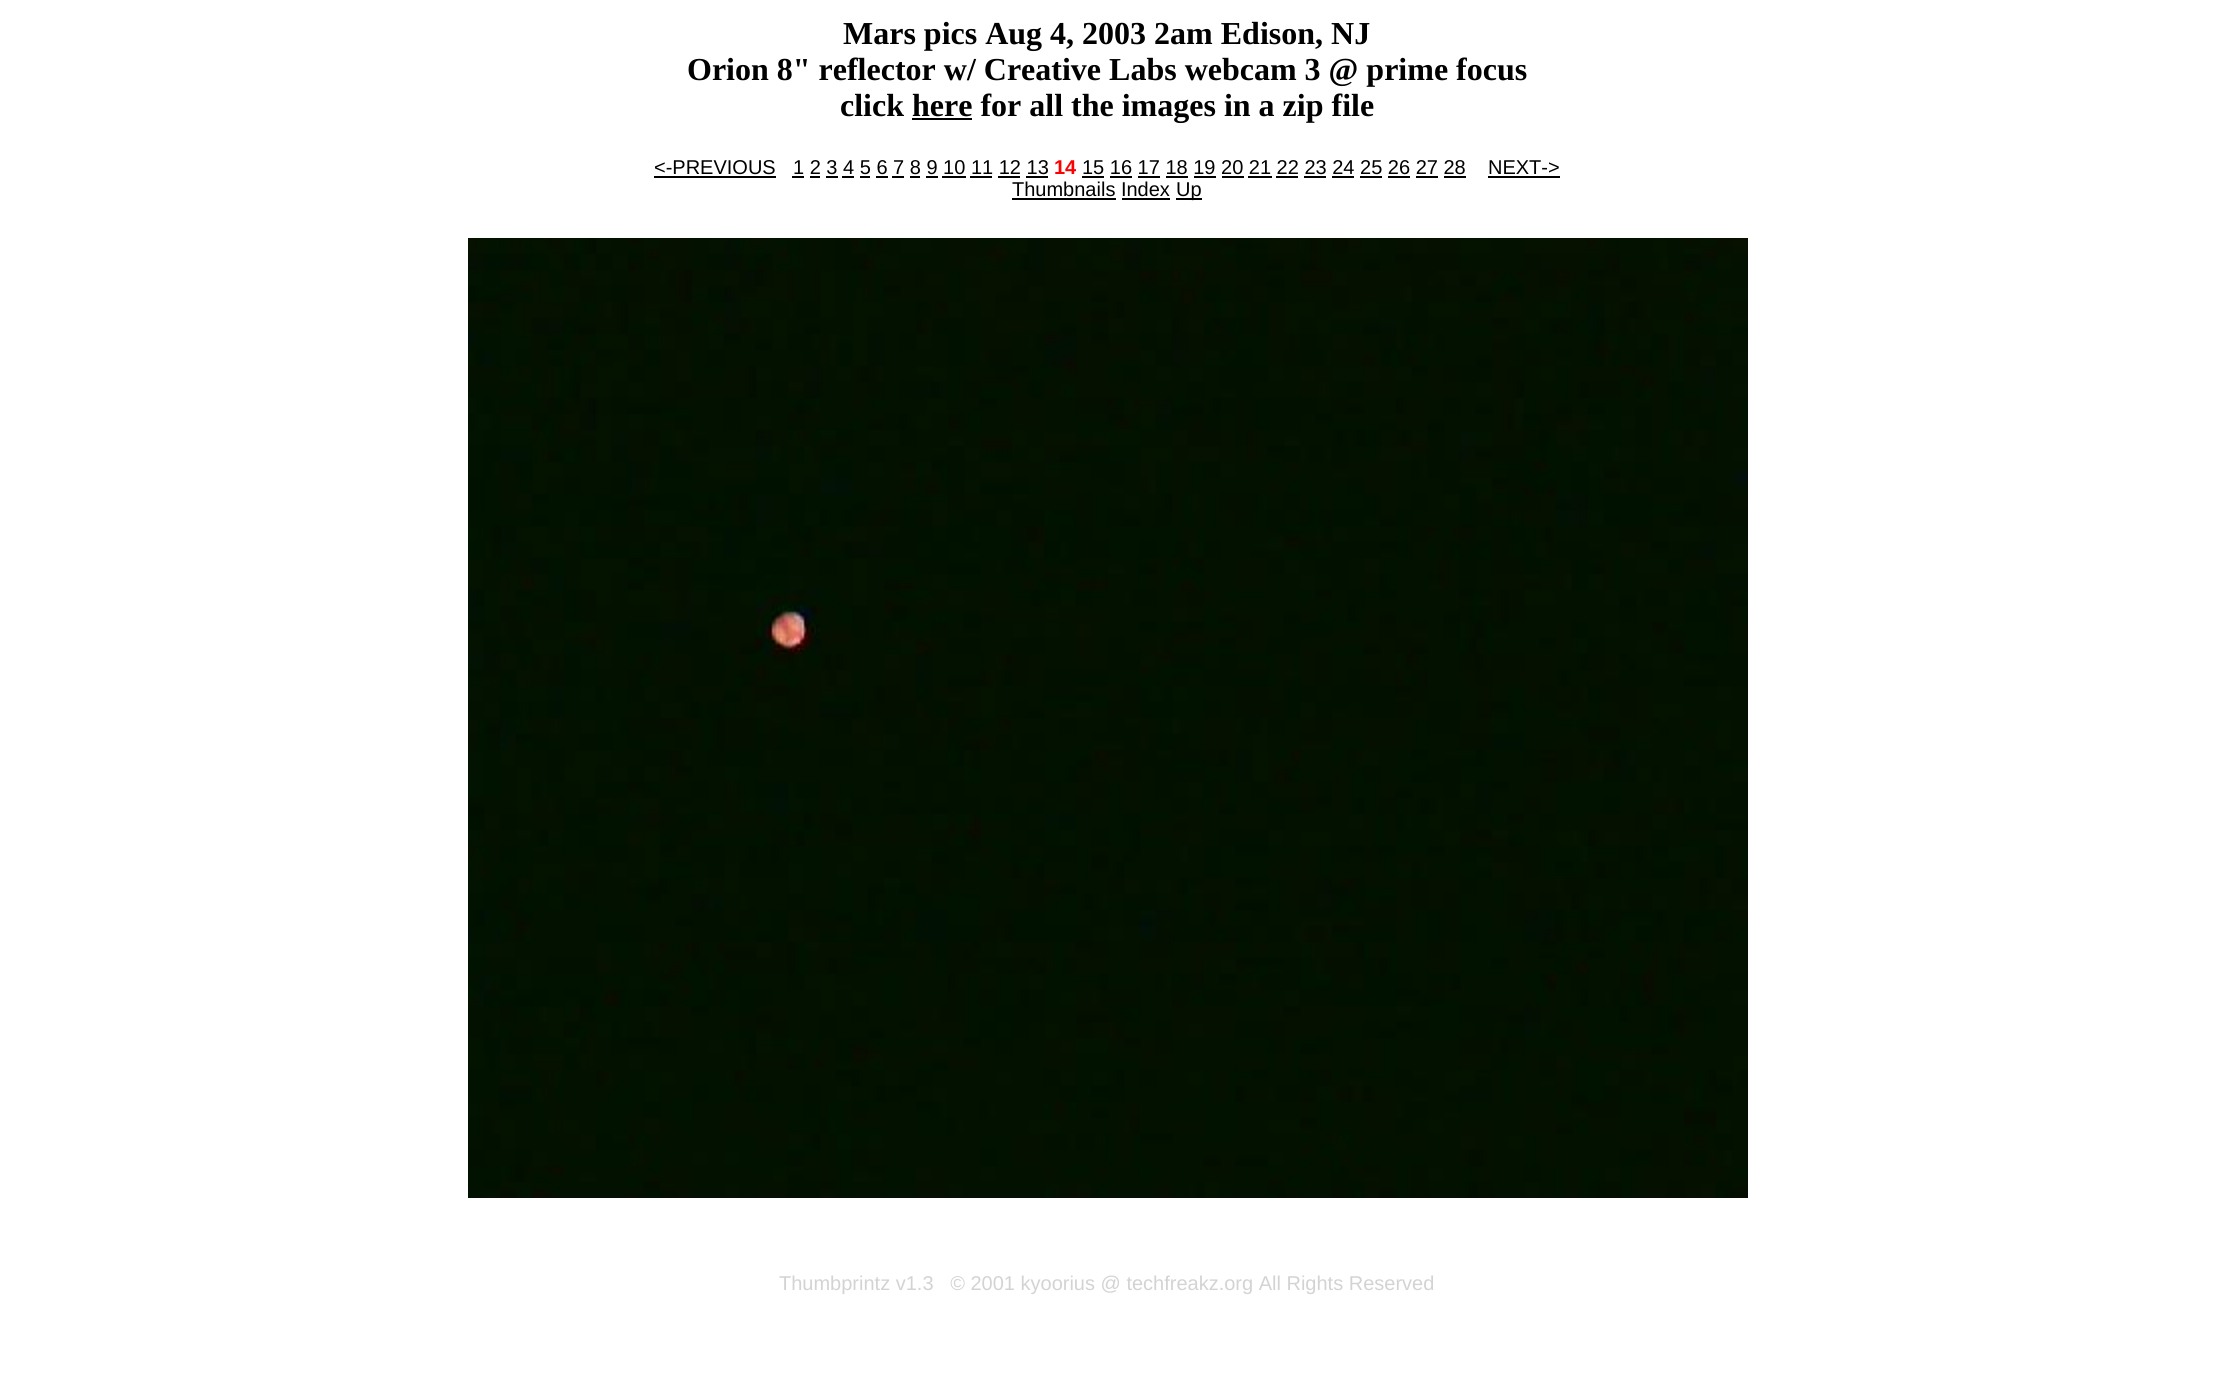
#include <cairo.h>
#include <math.h>
#include <stddef.h>

static cairo_t *c;
static void C(unsigned color){cairo_set_source_rgb(c, (color >> 16) / 255.0, (color >> 8 & 255) / 255.0, (color & 255) / 255.0);}
static void F(const char *family, double size, int italic, int bold){cairo_select_font_face(c, family, italic ? CAIRO_FONT_SLANT_ITALIC : CAIRO_FONT_SLANT_NORMAL,bold ? CAIRO_FONT_WEIGHT_BOLD : CAIRO_FONT_WEIGHT_NORMAL);cairo_set_font_size(c, size);}
static void T(double x, double y, const char *s){cairo_move_to(c, x, y);cairo_show_text(c, s);}
static void R(double x, double y, double w, double h){cairo_rectangle(c, x, y, w, h);cairo_fill(c);}
static void I(const char *path, double x, double y, double w, double h){cairo_surface_t *image = cairo_image_surface_create_from_png(path);cairo_save(c);cairo_set_source_surface(c, image, x, y);cairo_rectangle(c, x, y, w, h);cairo_fill(c);cairo_restore(c);cairo_surface_destroy(image);}
int main(void) {
cairo_surface_t *surface = cairo_image_surface_create(CAIRO_FORMAT_RGB24, 2214, 1383);
c = cairo_create(surface);
cairo_font_options_t *options = cairo_font_options_create();
cairo_font_options_set_hint_metrics(options, CAIRO_HINT_METRICS_OFF);
cairo_font_options_set_hint_style(options, CAIRO_HINT_STYLE_NONE);
cairo_set_font_options(c, options);
cairo_set_miter_limit(c, 4);
C(0xffffff);
cairo_paint(c);
F("Liberation Serif",32,0,1);
C(0x000000);
T(843,44,"Mars pics Aug 4, 2003 2am Edison, NJ");
T(687,80,"Orion 8\" reflector w/ Creative Labs webcam 3 @ prime focus");
T(840,116,"click here for all the images in a zip file");
R(912,118,60,2);
F("Liberation Sans",20,0,0);
T(654,174,"<-PREVIOUS");
R(654,176,122,2);
T(793,174,"1 2 3 4 5 6 7 8 9 10 11 12 13");
R(792,176,12,2);
R(810,176,10,2);
R(826,176,12,2);
R(842,176,12,2);
R(860,176,10,2);
R(876,176,12,2);
R(892,176,12,2);
R(910,176,10,2);
R(926,176,12,2);
R(942,176,24,2);
R(970,176,22,2);
R(998,176,22,2);
R(1026,176,22,2);
F("Liberation Sans",20,0,1);
C(0xff0000);
T(1054,174,"14");
F("Liberation Sans",20,0,0);
C(0x000000);
T(1082,174,"15 16 17 18 19 20 21 22 23 24 25 26 27 28");
R(1082,176,22,2);
R(1110,176,22,2);
R(1138,176,22,2);
R(1166,176,22,2);
R(1194,176,22,2);
R(1222,176,22,2);
R(1248,176,24,2);
R(1276,176,22,2);
R(1304,176,22,2);
R(1332,176,22,2);
R(1360,176,22,2);
R(1388,176,22,2);
R(1416,176,22,2);
R(1444,176,22,2);
T(1488,174,"NEXT->");
R(1488,176,72,2);
T(1012,196,"Thumbnails Index");
R(1012,198,104,2);
R(1122,198,48,2);
R(1176,198,26,2);
T(1176,196,"Up");
I("1.png",468,238,1280,960);
C(0xd3d3d3);
T(779,1290,"Thumbprintz v1.3   © 2001 kyoorius @ techfreakz.org All Rights Reserved");
cairo_surface_write_to_png(surface, "o.png");
cairo_font_options_destroy(options);
cairo_destroy(c);
cairo_surface_destroy(surface);
return 0;
}
